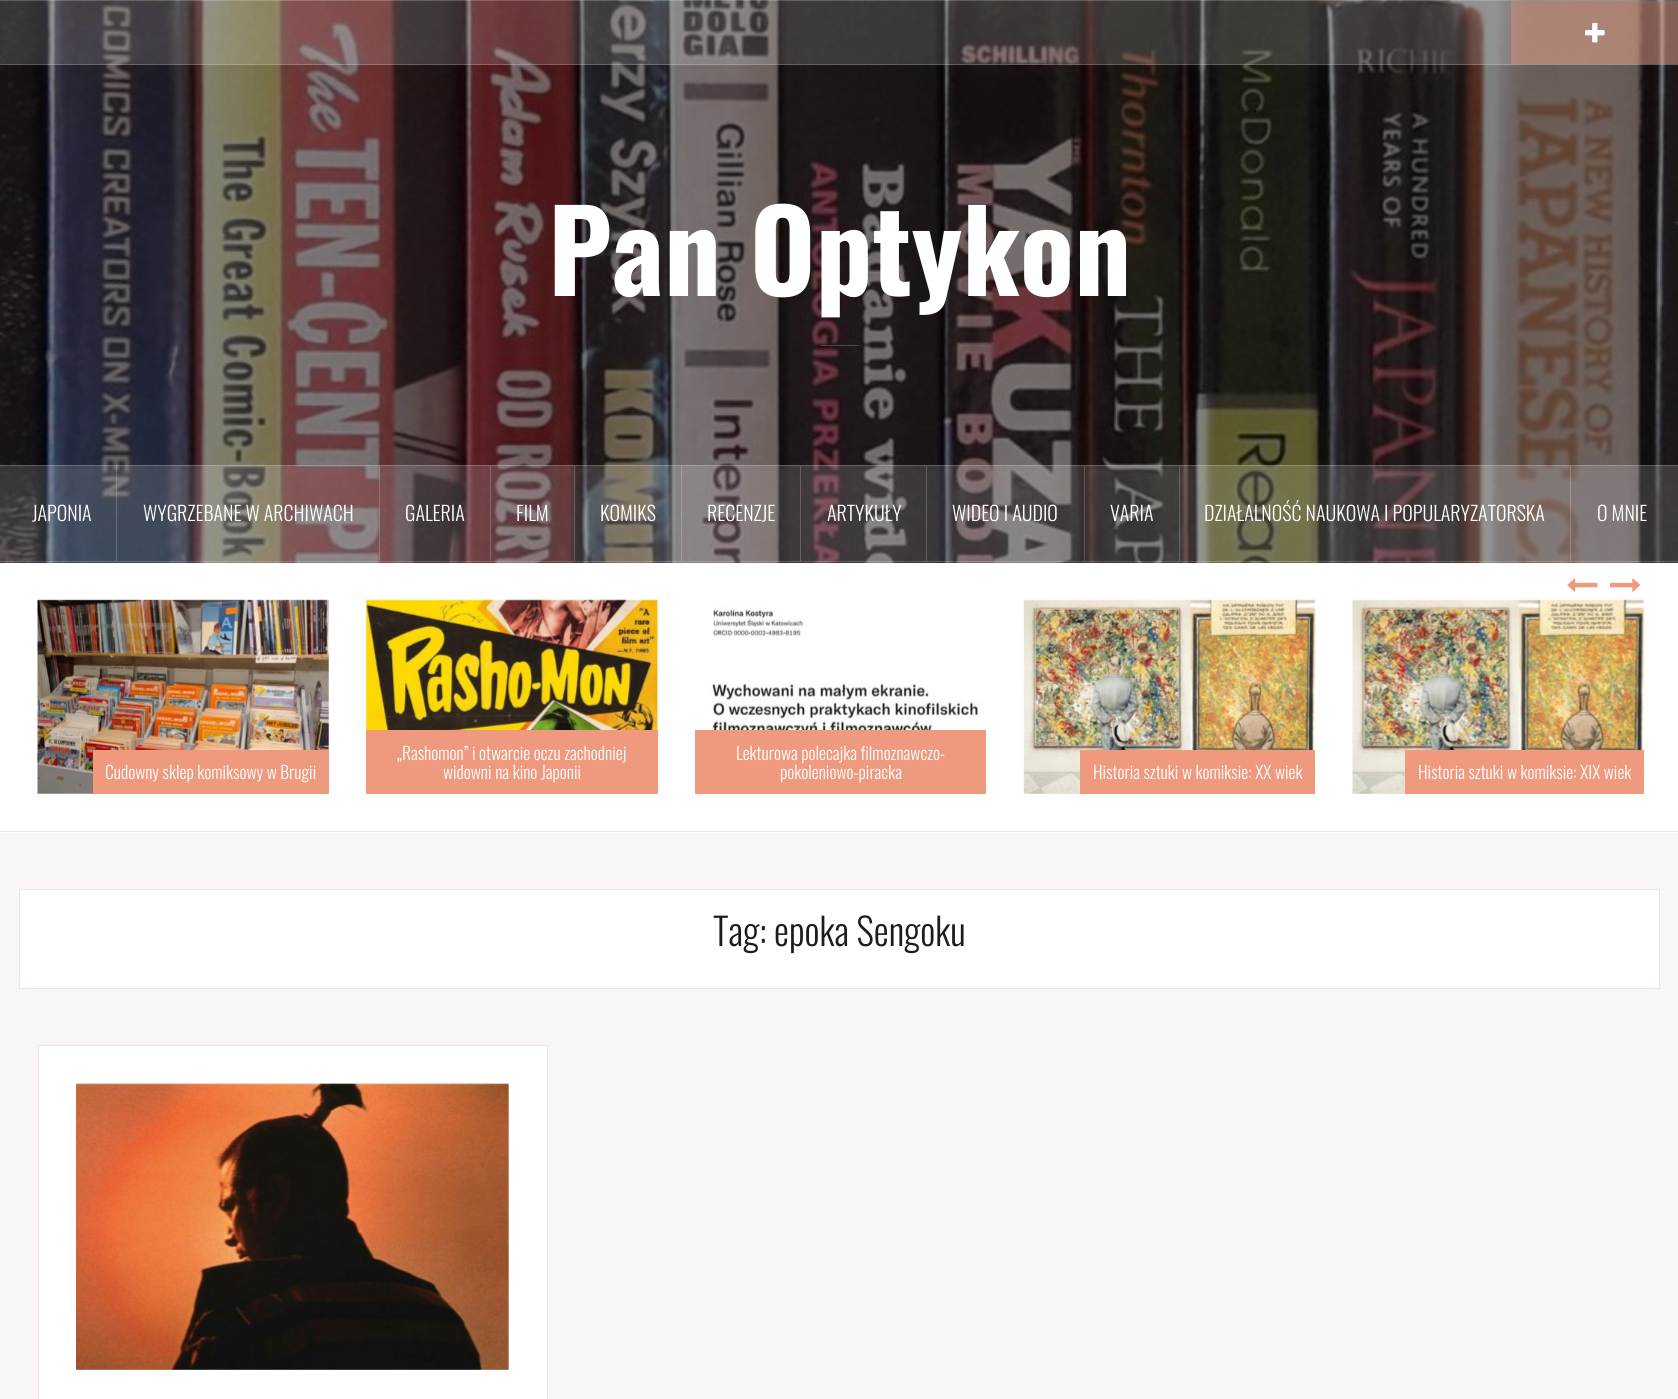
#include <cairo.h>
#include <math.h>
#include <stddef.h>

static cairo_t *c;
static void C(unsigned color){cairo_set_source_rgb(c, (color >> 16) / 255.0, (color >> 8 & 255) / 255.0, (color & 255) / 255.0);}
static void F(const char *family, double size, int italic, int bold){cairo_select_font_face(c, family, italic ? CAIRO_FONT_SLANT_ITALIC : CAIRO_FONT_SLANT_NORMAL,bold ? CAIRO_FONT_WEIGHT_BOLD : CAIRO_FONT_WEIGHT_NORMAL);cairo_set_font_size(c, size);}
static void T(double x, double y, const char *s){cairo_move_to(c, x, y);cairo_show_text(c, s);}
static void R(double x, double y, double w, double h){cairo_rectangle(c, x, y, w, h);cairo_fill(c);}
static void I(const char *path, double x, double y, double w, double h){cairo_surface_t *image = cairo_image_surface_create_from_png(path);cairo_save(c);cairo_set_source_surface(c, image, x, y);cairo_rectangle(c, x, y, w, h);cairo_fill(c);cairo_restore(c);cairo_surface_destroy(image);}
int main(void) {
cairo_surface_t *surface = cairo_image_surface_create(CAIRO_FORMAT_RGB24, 1678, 1399);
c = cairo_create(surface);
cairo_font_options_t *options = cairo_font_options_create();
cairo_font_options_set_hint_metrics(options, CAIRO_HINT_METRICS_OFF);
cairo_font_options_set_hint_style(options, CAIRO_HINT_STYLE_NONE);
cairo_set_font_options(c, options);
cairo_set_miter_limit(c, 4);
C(0xf9f6f5);
cairo_paint(c);
I("1.png",0,0,1678,563);
cairo_set_source_rgba(c,1,1,1,0.15);
R(0,0,1678,65);
cairo_set_source_rgba(c,1,1,1,0.2);
R(0,0,1678,1);
R(0,64,1678,1);
cairo_set_source_rgba(c,0.937,0.6,0.498,0.4);
R(1511,1,167,63);
I("2.png",1585,22,20,21);
F("Oswald",112.5,0,1);
C(0xffffff);
T(548,296,"Pan Optykon");
cairo_set_source_rgba(c,1,1,1,0.2);
R(821,345,38,1);
cairo_set_source_rgba(c,1,1,1,0.15);
R(0,465,1678,98);
cairo_set_source_rgba(c,1,1,1,0.2);
R(0,465,1678,1);
R(0,561,1678,1);
R(116,466,1,95);
F("Oswald Light",20,0,0);
C(0xffffff);
T(32,521,"JAPONIA");
cairo_set_source_rgba(c,1,1,1,0.2);
R(379,466,1,95);
C(0xffffff);
T(143,521,"WYGRZEBANE W ARCHIWACH");
cairo_set_source_rgba(c,1,1,1,0.2);
R(490,466,1,95);
C(0xffffff);
T(405,521,"GALERIA");
cairo_set_source_rgba(c,1,1,1,0.2);
R(574,466,1,95);
C(0xffffff);
T(516,521,"FILM");
cairo_set_source_rgba(c,1,1,1,0.2);
R(681,466,1,95);
C(0xffffff);
T(600,521,"KOMIKS");
cairo_set_source_rgba(c,1,1,1,0.2);
R(800,466,1,95);
C(0xffffff);
T(707,521,"RECENZJE");
cairo_set_source_rgba(c,1,1,1,0.2);
R(926,466,1,95);
C(0xffffff);
T(827,521,"ARTYKUŁY");
cairo_set_source_rgba(c,1,1,1,0.2);
R(1084,466,1,95);
C(0xffffff);
T(952,521,"WIDEO I AUDIO");
cairo_set_source_rgba(c,1,1,1,0.2);
R(1179,466,1,95);
C(0xffffff);
T(1110,521,"VARIA");
cairo_set_source_rgba(c,1,1,1,0.2);
R(1570,466,1,95);
C(0xffffff);
T(1204,521,"DZIAŁALNOŚĆ NAUKOWA I POPULARYZATORSKA");
T(1597,521,"O MNIE");
R(0,563,1678,270);
C(0xe8e8e8);
R(0,831,1678,1);
I("3.png",1567,578,31,14);
I("4.png",1610,578,30,14);
I("5.png",37,599,292,195);
C(0xef997f);
R(93,750,236,44);
F("Oswald Light",17.5,0,0);
C(0xffffff);
T(105,779,"Cudowny sklep komiksowy w Brugii");
I("6.png",366,599,293,195);
C(0xef997f);
R(366,730,292,64);
C(0xffffff);
T(397,760,"„Rashomon” i otwarcie oczu zachodniej");
T(443,779,"widowni na kino Japonii");
I("7.png",707,606,275,124);
C(0xef997f);
R(695,730,291,64);
C(0xffffff);
T(736,760,"Lekturowa polecajka filmoznawczo-");
T(780,779,"pokoleniowo-piracka");
I("8.png",1023,599,293,195);
C(0xef997f);
R(1080,750,235,44);
C(0xffffff);
T(1093,779,"Historia sztuki w komiksie: XX wiek");
I("9.png",1352,599,293,195);
C(0xef997f);
R(1405,750,239,44);
C(0xffffff);
T(1418,779,"Historia sztuki w komiksie: XIX wiek");
cairo_rectangle(c,19.5,889.5,1640,99);
cairo_fill_preserve(c);
C(0xe8e8e8);
cairo_set_line_width(c,1);
cairo_stroke(c);
F("Oswald Light",37.5,0,0);
C(0x1c1c1c);
T(713,946,"Tag: epoka Sengoku");
C(0xffffff);
cairo_rectangle(c,38.5,1045.5,509,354);
cairo_fill_preserve(c);
C(0xe8e8e8);
cairo_stroke(c);
I("10.png",76,1083,433,287);
cairo_surface_write_to_png(surface, "o.png");
cairo_font_options_destroy(options);
cairo_destroy(c);
cairo_surface_destroy(surface);
return 0;
}
